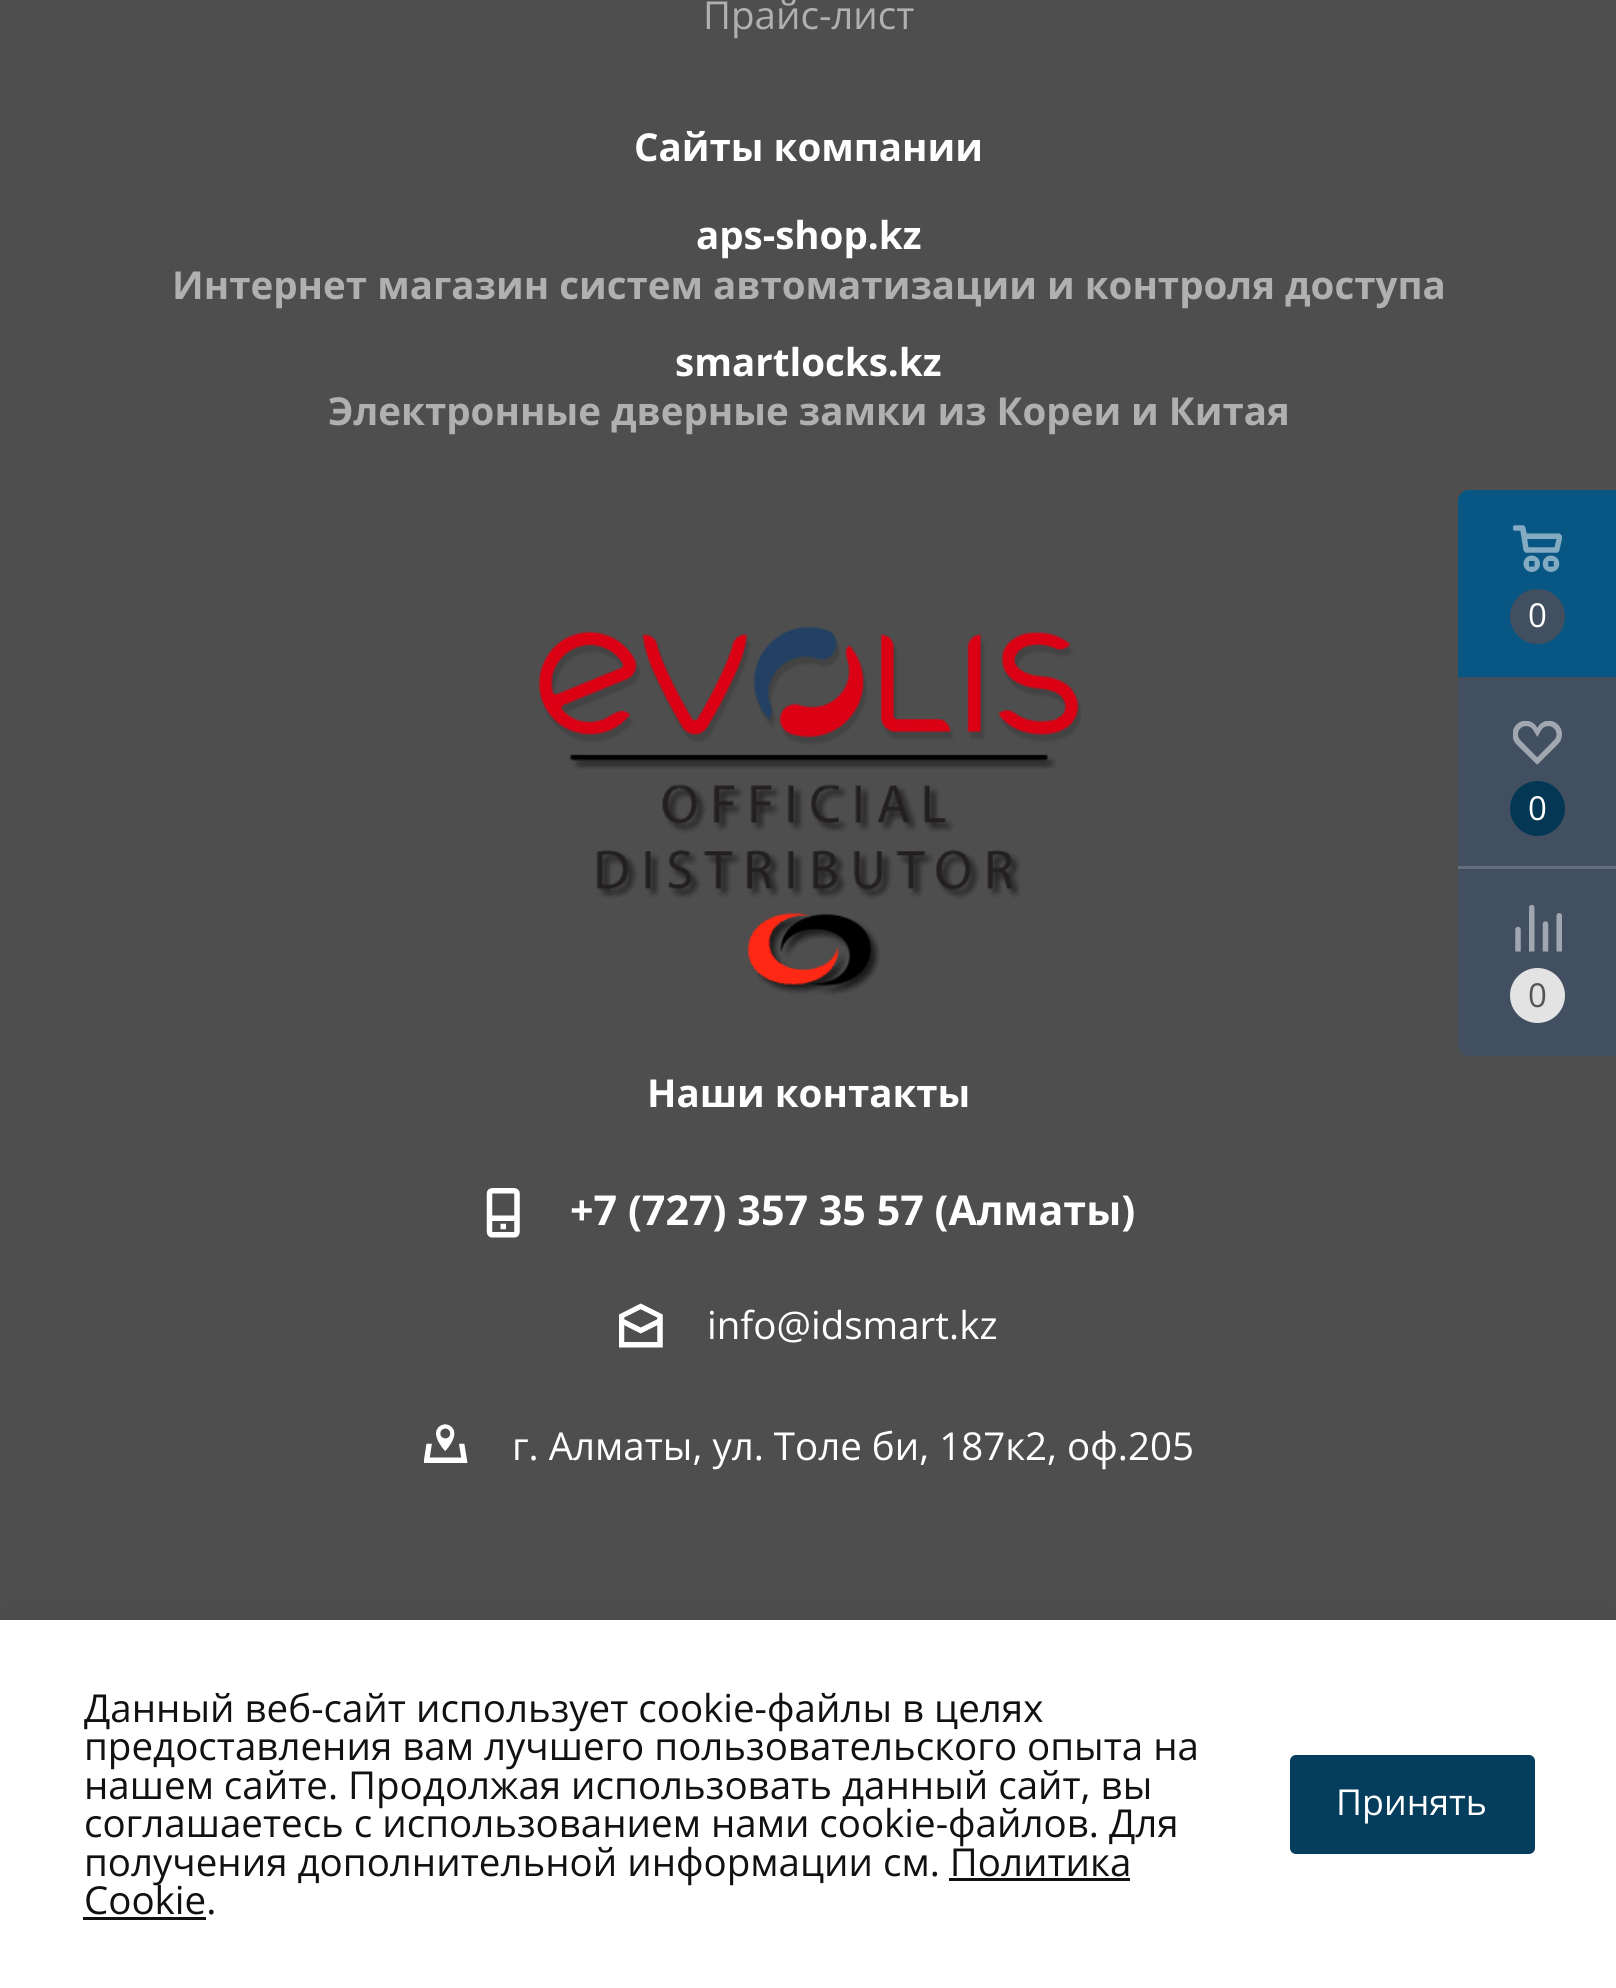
#include <cairo.h>
#include <math.h>
#include <stddef.h>

static cairo_t *c;
static void C(unsigned color){cairo_set_source_rgb(c, (color >> 16) / 255.0, (color >> 8 & 255) / 255.0, (color & 255) / 255.0);}
static void F(const char *family, double size, int italic, int bold){cairo_select_font_face(c, family, italic ? CAIRO_FONT_SLANT_ITALIC : CAIRO_FONT_SLANT_NORMAL,bold ? CAIRO_FONT_WEIGHT_BOLD : CAIRO_FONT_WEIGHT_NORMAL);cairo_set_font_size(c, size);}
static void T(double x, double y, const char *s){cairo_move_to(c, x, y);cairo_show_text(c, s);}
static void R(double x, double y, double w, double h){cairo_rectangle(c, x, y, w, h);cairo_fill(c);}
static void Q(double x, double y, double w, double h, double r){cairo_new_sub_path(c);cairo_arc(c, x + w - r, y + h - r, r, 0, M_PI / 2);cairo_arc(c, x + r, y + h - r, r, M_PI / 2, M_PI);cairo_arc(c, x + r, y + r, r, M_PI, 1.5 * M_PI);cairo_arc(c, x + w - r, y + r, r, 1.5 * M_PI, 2 * M_PI);cairo_close_path(c);}
static void S(double x, double y, double w, double h, double r, double blur, double alpha){cairo_push_group_with_content(c, CAIRO_CONTENT_ALPHA);cairo_set_operator(c, CAIRO_OPERATOR_SOURCE);for (int i = 15; i >= -15 && fmin(w, h) + blur * i / 3 > 0; i -= 2) {double e = blur * i / 6;cairo_set_source_rgba(c, 0, 0, 0, alpha * erfc((i - 1) / 8.5) / 2);Q(x - e, y - e, w + 2 * e, h + 2 * e, fmax(0, fmin(r + e + blur * .6, fmin(w, h) / 2 + e)));cairo_fill(c);}cairo_pattern_t *soft = cairo_pop_group(c);cairo_mask(c, soft);cairo_pattern_destroy(soft);}
static void I(const char *path, double x, double y, double w, double h){cairo_surface_t *image = cairo_image_surface_create_from_png(path);cairo_save(c);cairo_set_source_surface(c, image, x, y);cairo_rectangle(c, x, y, w, h);cairo_fill(c);cairo_restore(c);cairo_surface_destroy(image);}
int main(void) {
cairo_surface_t *surface = cairo_image_surface_create(CAIRO_FORMAT_RGB24, 1616, 1988);
c = cairo_create(surface);
cairo_font_options_t *options = cairo_font_options_create();
cairo_font_options_set_hint_metrics(options, CAIRO_HINT_METRICS_OFF);
cairo_font_options_set_hint_style(options, CAIRO_HINT_STYLE_NONE);
cairo_set_font_options(c, options);
cairo_set_miter_limit(c, 4);
C(0x4e4e4e);
cairo_paint(c);
F("Open Sans",38.5,0,0);
C(0xb0b0b0);
T(703,29,"Прайс-лист");
F("Open Sans",38.5,0,1);
C(0xffffff);
T(634,161,"Сайты компании");
T(696,249,"aps-shop.kz");
C(0xb0b0b0);
T(172,299,"Интернет магазин систем автоматизации и контроля доступа");
C(0xffffff);
T(675,376,"smartlocks.kz");
C(0xb0b0b0);
T(328,425,"Электронные дверные замки из Кореи и Китая");
I("1.png",538,626,543,369);
C(0xffffff);
T(647,1107,"Наши контакты");
I("2.png",486,1188,34,50);
F("Open Sans",41.25,0,1);
T(570,1225,"+7 (727) 357 35 57 (Алматы)");
I("3.png",619,1303,44,45);
F("Open Sans",38.5,0,0);
T(707,1339,"info@idsmart.kz");
I("4.png",424,1424,44,39);
T(512,1460,"г. Алматы, ул. Толе би, 187к2, оф.205");
C(0x424f60);
cairo_new_path(c);
cairo_move_to(c,1469,490);
cairo_line_to(c,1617,490);
cairo_line_to(c,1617,1056);
cairo_line_to(c,1469,1056);
cairo_curve_to(c,1463,1056,1458,1051,1458,1045);
cairo_line_to(c,1458,501);
cairo_curve_to(c,1458,495,1463,490,1469,490);
cairo_close_path(c);
cairo_fill(c);
C(0x075684);
cairo_new_path(c);
cairo_move_to(c,1469,490);
cairo_line_to(c,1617,490);
cairo_line_to(c,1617,677);
cairo_line_to(c,1458,677);
cairo_line_to(c,1458,501);
cairo_curve_to(c,1458,495,1463,490,1469,490);
cairo_close_path(c);
cairo_fill(c);
I("5.png",1513,525,49,47);
C(0x424f60);
cairo_arc(c,1537.5,616.5,27.5,0,2 * M_PI);
cairo_fill(c);
F("Open Sans",33,0,0);
C(0xffffff);
T(1528,627,"0");
I("6.png",1513,721,49,44);
C(0x043754);
cairo_arc(c,1537.5,808.5,27.5,0,2 * M_PI);
cairo_fill(c);
C(0xffffff);
T(1528,820,"0");
C(0x636f7d);
R(1458,866,158,3);
I("7.png",1515,905,47,47);
C(0xe3e3e3);
cairo_arc(c,1537.5,995.5,27.5,0,2 * M_PI);
cairo_fill(c);
C(0x555555);
T(1528,1007,"0");
C(0x000000);
S(0,1653,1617,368,0,41,.18);
C(0xffffff);
R(0,1620,1616,368);
F("Open Sans",38.5,0,0);
C(0x111111);
T(84,1722,"Данный веб-сайт использует cookie-файлы в целях");
T(84,1760,"предоставления вам лучшего пользовательского опыта на");
T(84,1799,"нашем сайте. Продолжая использовать данный сайт, вы");
T(84,1837,"соглашаетесь с использованием нами cookie-файлов. Для");
T(84,1876,"получения дополнительной информации см. Политика");
T(84,1914,"Cookie.");
R(949,1878,181,3);
R(83,1917,123,3);
C(0x053d5d);
Q(1291.5,1756.5,242,96,4.5);
cairo_fill_preserve(c);
cairo_set_line_width(c,3);
cairo_stroke(c);
F("Open Sans",35.75,0,0);
C(0xffffff);
T(1336,1815,"Принять");
cairo_surface_write_to_png(surface, "o.png");
cairo_font_options_destroy(options);
cairo_destroy(c);
cairo_surface_destroy(surface);
return 0;
}
